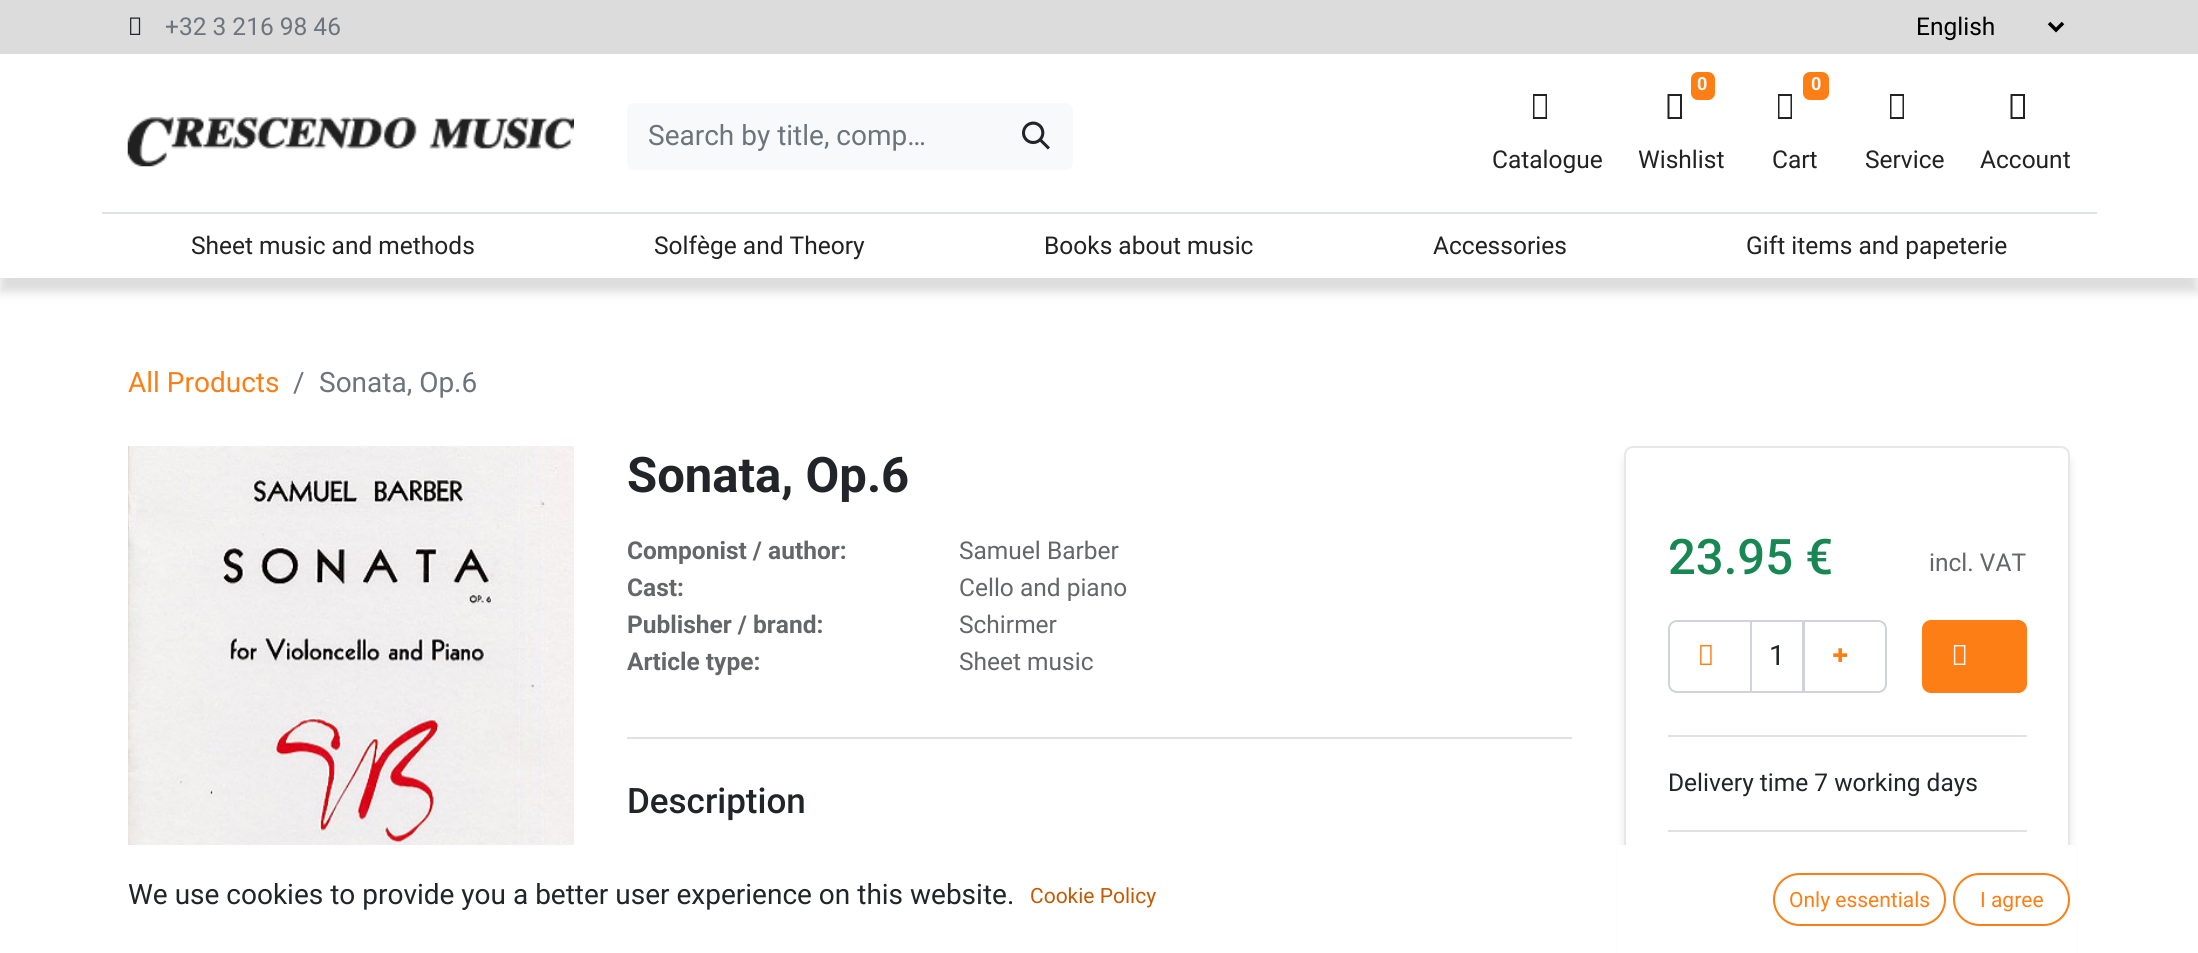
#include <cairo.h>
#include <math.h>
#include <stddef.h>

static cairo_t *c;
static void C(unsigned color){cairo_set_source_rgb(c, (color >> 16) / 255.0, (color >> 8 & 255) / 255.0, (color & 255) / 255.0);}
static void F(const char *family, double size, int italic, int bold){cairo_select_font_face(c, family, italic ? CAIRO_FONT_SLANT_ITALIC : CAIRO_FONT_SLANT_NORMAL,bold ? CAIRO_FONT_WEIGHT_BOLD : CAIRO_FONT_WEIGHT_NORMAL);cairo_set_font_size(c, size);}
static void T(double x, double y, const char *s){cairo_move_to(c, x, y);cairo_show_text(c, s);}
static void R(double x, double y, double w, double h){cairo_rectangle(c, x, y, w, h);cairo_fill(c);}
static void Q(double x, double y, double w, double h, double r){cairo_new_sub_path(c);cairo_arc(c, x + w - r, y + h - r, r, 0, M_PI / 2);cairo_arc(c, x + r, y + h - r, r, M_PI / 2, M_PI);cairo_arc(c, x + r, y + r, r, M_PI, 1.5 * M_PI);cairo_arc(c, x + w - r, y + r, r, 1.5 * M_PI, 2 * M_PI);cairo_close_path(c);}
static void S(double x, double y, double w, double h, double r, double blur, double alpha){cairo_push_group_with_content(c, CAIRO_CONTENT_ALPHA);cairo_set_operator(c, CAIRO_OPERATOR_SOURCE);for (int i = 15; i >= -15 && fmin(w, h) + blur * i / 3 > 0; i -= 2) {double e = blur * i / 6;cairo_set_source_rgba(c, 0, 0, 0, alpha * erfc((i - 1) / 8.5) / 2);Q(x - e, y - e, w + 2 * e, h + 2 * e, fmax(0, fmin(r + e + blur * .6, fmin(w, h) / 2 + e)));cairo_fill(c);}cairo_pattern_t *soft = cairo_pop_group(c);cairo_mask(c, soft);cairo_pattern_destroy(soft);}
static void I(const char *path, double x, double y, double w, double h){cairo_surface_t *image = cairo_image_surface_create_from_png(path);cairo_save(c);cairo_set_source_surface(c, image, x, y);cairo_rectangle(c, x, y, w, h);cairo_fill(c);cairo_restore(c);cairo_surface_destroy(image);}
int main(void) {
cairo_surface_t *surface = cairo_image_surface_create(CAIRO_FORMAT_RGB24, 2198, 953);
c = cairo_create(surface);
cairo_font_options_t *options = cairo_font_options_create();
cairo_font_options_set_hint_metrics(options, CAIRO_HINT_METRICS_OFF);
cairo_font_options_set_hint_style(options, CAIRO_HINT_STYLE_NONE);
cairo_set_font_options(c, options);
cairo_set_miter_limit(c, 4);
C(0xffffff);
cairo_paint(c);
C(0xdcdcdc);
R(0,0,2198,54);
I("1.png",130,17,11,18);
F("Roboto",24.5,0,0);
C(0x6c757d);
T(165,35,"+32 3 216 98 46");
cairo_new_path(c);
cairo_move_to(c,2049,23);
cairo_line_to(c,2056,30);
cairo_line_to(c,2063,23);
C(0x000000);
cairo_set_line_width(c,3.5);
cairo_stroke(c);
T(1916,35,"English");
cairo_save(c);
cairo_rectangle(c,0,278,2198,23);
cairo_clip(c);
C(0xc7c7c7);
S(0,68,2198,224,0,5,.62);
cairo_restore(c);
I("2.png",127,117,447,50);
C(0xf8f9fa);
cairo_new_path(c);
cairo_move_to(c,634,103);
cairo_line_to(c,1001,103);
cairo_line_to(c,1001,170);
cairo_line_to(c,634,170);
cairo_curve_to(c,630,170,627,167,627,163);
cairo_line_to(c,627,110);
cairo_curve_to(c,627,106,630,103,634,103);
cairo_close_path(c);
cairo_fill(c);
F("Roboto",28,0,0);
C(0x6c757d);
T(648,145,"Search by title, comp…");
C(0xf8f9fa);
cairo_new_path(c);
cairo_move_to(c,999,103);
cairo_line_to(c,1066,103);
cairo_curve_to(c,1070,103,1073,106,1073,110);
cairo_line_to(c,1073,163);
cairo_curve_to(c,1073,167,1070,170,1066,170);
cairo_line_to(c,999,170);
cairo_close_path(c);
cairo_fill(c);
I("3.png",1022,121,28,29);
C(0x222222);
cairo_new_path(c);
cairo_move_to(c,1533,119);
cairo_line_to(c,1533,94);
cairo_line_to(c,1547,94);
cairo_line_to(c,1547,119);
cairo_close_path(c);
cairo_move_to(c,1534.5,117);
cairo_line_to(c,1545.5,117);
cairo_line_to(c,1545.5,96);
cairo_line_to(c,1534.5,96);
cairo_close_path(c);
cairo_fill(c);
F("Roboto",24.5,0,0);
T(1492,168,"Catalogue");
C(0xfd7e14);
Q(1691,72,24,28,7);
cairo_fill(c);
F("Roboto",18,0,1);
C(0xf8f9fa);
T(1697,90,"0");
C(0x222222);
cairo_new_path(c);
cairo_move_to(c,1667.5,119);
cairo_line_to(c,1667.5,94);
cairo_line_to(c,1682,94);
cairo_line_to(c,1682,119);
cairo_close_path(c);
cairo_move_to(c,1669.5,117);
cairo_line_to(c,1680,117);
cairo_line_to(c,1680,96);
cairo_line_to(c,1669.5,96);
cairo_close_path(c);
cairo_fill(c);
F("Roboto",24.5,0,0);
T(1638,168,"Wishlist");
C(0xfd7e14);
Q(1803,72,26,28,7);
cairo_fill(c);
F("Roboto",18,0,1);
C(0xf8f9fa);
T(1811,90,"0");
C(0x222222);
cairo_new_path(c);
cairo_move_to(c,1778,119);
cairo_line_to(c,1778,94);
cairo_line_to(c,1792,94);
cairo_line_to(c,1792,119);
cairo_close_path(c);
cairo_move_to(c,1779.5,117);
cairo_line_to(c,1790.5,117);
cairo_line_to(c,1790.5,96);
cairo_line_to(c,1779.5,96);
cairo_close_path(c);
cairo_fill(c);
F("Roboto",24.5,0,0);
T(1772,168,"Cart");
cairo_new_path(c);
cairo_move_to(c,1890,119);
cairo_line_to(c,1890,94);
cairo_line_to(c,1904,94);
cairo_line_to(c,1904,119);
cairo_close_path(c);
cairo_move_to(c,1891.5,117);
cairo_line_to(c,1902.5,117);
cairo_line_to(c,1902.5,96);
cairo_line_to(c,1891.5,96);
cairo_close_path(c);
cairo_fill(c);
T(1865,168,"Service");
cairo_new_path(c);
cairo_move_to(c,2010.5,119);
cairo_line_to(c,2010.5,94);
cairo_line_to(c,2025,94);
cairo_line_to(c,2025,119);
cairo_close_path(c);
cairo_move_to(c,2012.5,117);
cairo_line_to(c,2023,117);
cairo_line_to(c,2023,96);
cairo_line_to(c,2012.5,96);
cairo_close_path(c);
cairo_fill(c);
T(1980,168,"Account");
C(0xdee2e6);
R(102,212,1995,2);
C(0x222222);
T(191,254,"Sheet music and methods");
T(654,254,"Solfège and Theory");
T(1044,254,"Books about music");
T(1433,254,"Accessories");
T(1746,254,"Gift items and papeterie");
F("Roboto",28,0,0);
C(0xfd7e14);
T(128,392,"All Products");
C(0x6c757d);
T(293,392,"/");
T(319,392,"Sonata, Op.6");
I("4.png",128,446,446,399);
F("Roboto",49,0,1);
C(0x212529);
T(627,492,"Sonata, Op.6");
F("Roboto",24.5,0,1);
C(0x646669);
T(627,559,"Componist / author:");
F("Roboto",24.5,0,0);
T(959,559,"Samuel Barber");
F("Roboto",24.5,0,1);
T(627,596,"Cast:");
F("Roboto",24.5,0,0);
T(959,596,"Cello and piano");
F("Roboto",24.5,0,1);
T(627,633,"Publisher / brand:");
F("Roboto",24.5,0,0);
T(959,633,"Schirmer");
F("Roboto",24.5,0,1);
T(627,670,"Article type:");
F("Roboto",24.5,0,0);
T(959,670,"Sheet music");
C(0xdee2e6);
R(627,737,945,2);
F("Roboto Medium",35,0,0);
C(0x212529);
T(627,813,"Description");
cairo_save(c);
cairo_set_fill_rule(c,CAIRO_FILL_RULE_EVEN_ODD);
cairo_new_path(c);
cairo_move_to(c,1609,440);
cairo_line_to(c,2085,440);
cairo_line_to(c,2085,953);
cairo_line_to(c,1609,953);
cairo_close_path(c);
cairo_move_to(c,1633,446);
cairo_line_to(c,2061,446);
cairo_curve_to(c,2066,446,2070,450,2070,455);
cairo_line_to(c,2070,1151);
cairo_curve_to(c,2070,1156,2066,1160,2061,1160);
cairo_line_to(c,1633,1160);
cairo_curve_to(c,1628,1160,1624,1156,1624,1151);
cairo_line_to(c,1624,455);
cairo_curve_to(c,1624,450,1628,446,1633,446);
cairo_close_path(c);
cairo_clip(c);
C(0xc7c7c7);
S(1624,455,446,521,9,4.5,.42);
cairo_restore(c);
Q(1625,447,444,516,8);
C(0xe7e7e7);
cairo_set_line_width(c,2);
cairo_stroke(c);
F("Roboto Medium",49,0,0);
C(0x198754);
T(1668,574,"23.95 €");
F("Roboto",24.5,0,0);
C(0x646669);
T(1929,571,"incl. VAT");
cairo_rectangle(c,1751,621,52,71);
C(0xced4da);
cairo_stroke(c);
cairo_new_path(c);
cairo_move_to(c,1677,621);
cairo_line_to(c,1751,621);
cairo_line_to(c,1751,692);
cairo_line_to(c,1677,692);
cairo_curve_to(c,1672.5,692,1669,688.5,1669,684);
cairo_line_to(c,1669,629);
cairo_curve_to(c,1669,624.5,1672.5,621,1677,621);
cairo_close_path(c);
cairo_stroke(c);
I("5.png",1700,645,12,20);
F("Roboto",28,0,0);
C(0x212529);
T(1769,665,"1");
cairo_new_path(c);
cairo_move_to(c,1804,621);
cairo_line_to(c,1878,621);
cairo_curve_to(c,1882.5,621,1886,624.5,1886,629);
cairo_line_to(c,1886,684);
cairo_curve_to(c,1886,688.5,1882.5,692,1878,692);
cairo_line_to(c,1804,692);
cairo_close_path(c);
C(0xced4da);
cairo_stroke(c);
F("Noto Sans Black",28,0,0);
C(0xfd7e14);
T(1832,665,"+");
Q(1923,621,103,71,8);
cairo_fill_preserve(c);
cairo_stroke(c);
I("6.png",1953,645,13,20);
C(0xdee2e6);
R(1668,735,359,2);
F("Roboto",24.5,0,0);
C(0x212529);
T(1668,791,"Delivery time 7 working days");
C(0xdee2e6);
R(1668,830,359,2);
C(0xffffff);
R(1618,845,458,108);
F("Roboto",28,0,0);
C(0x212529);
T(128,904,"We use cookies to provide you a better user experience on this website.");
F("Roboto",21,0,0);
C(0xc35a02);
T(1030,903,"Cookie Policy");
Q(1774,874,171,51,25.5);
C(0xfd7e14);
cairo_stroke(c);
T(1789,907,"Only essentials");
Q(1954,874,115,51,25.5);
cairo_stroke(c);
T(1980,907,"I agree");
cairo_surface_write_to_png(surface, "o.png");
cairo_font_options_destroy(options);
cairo_destroy(c);
cairo_surface_destroy(surface);
return 0;
}
